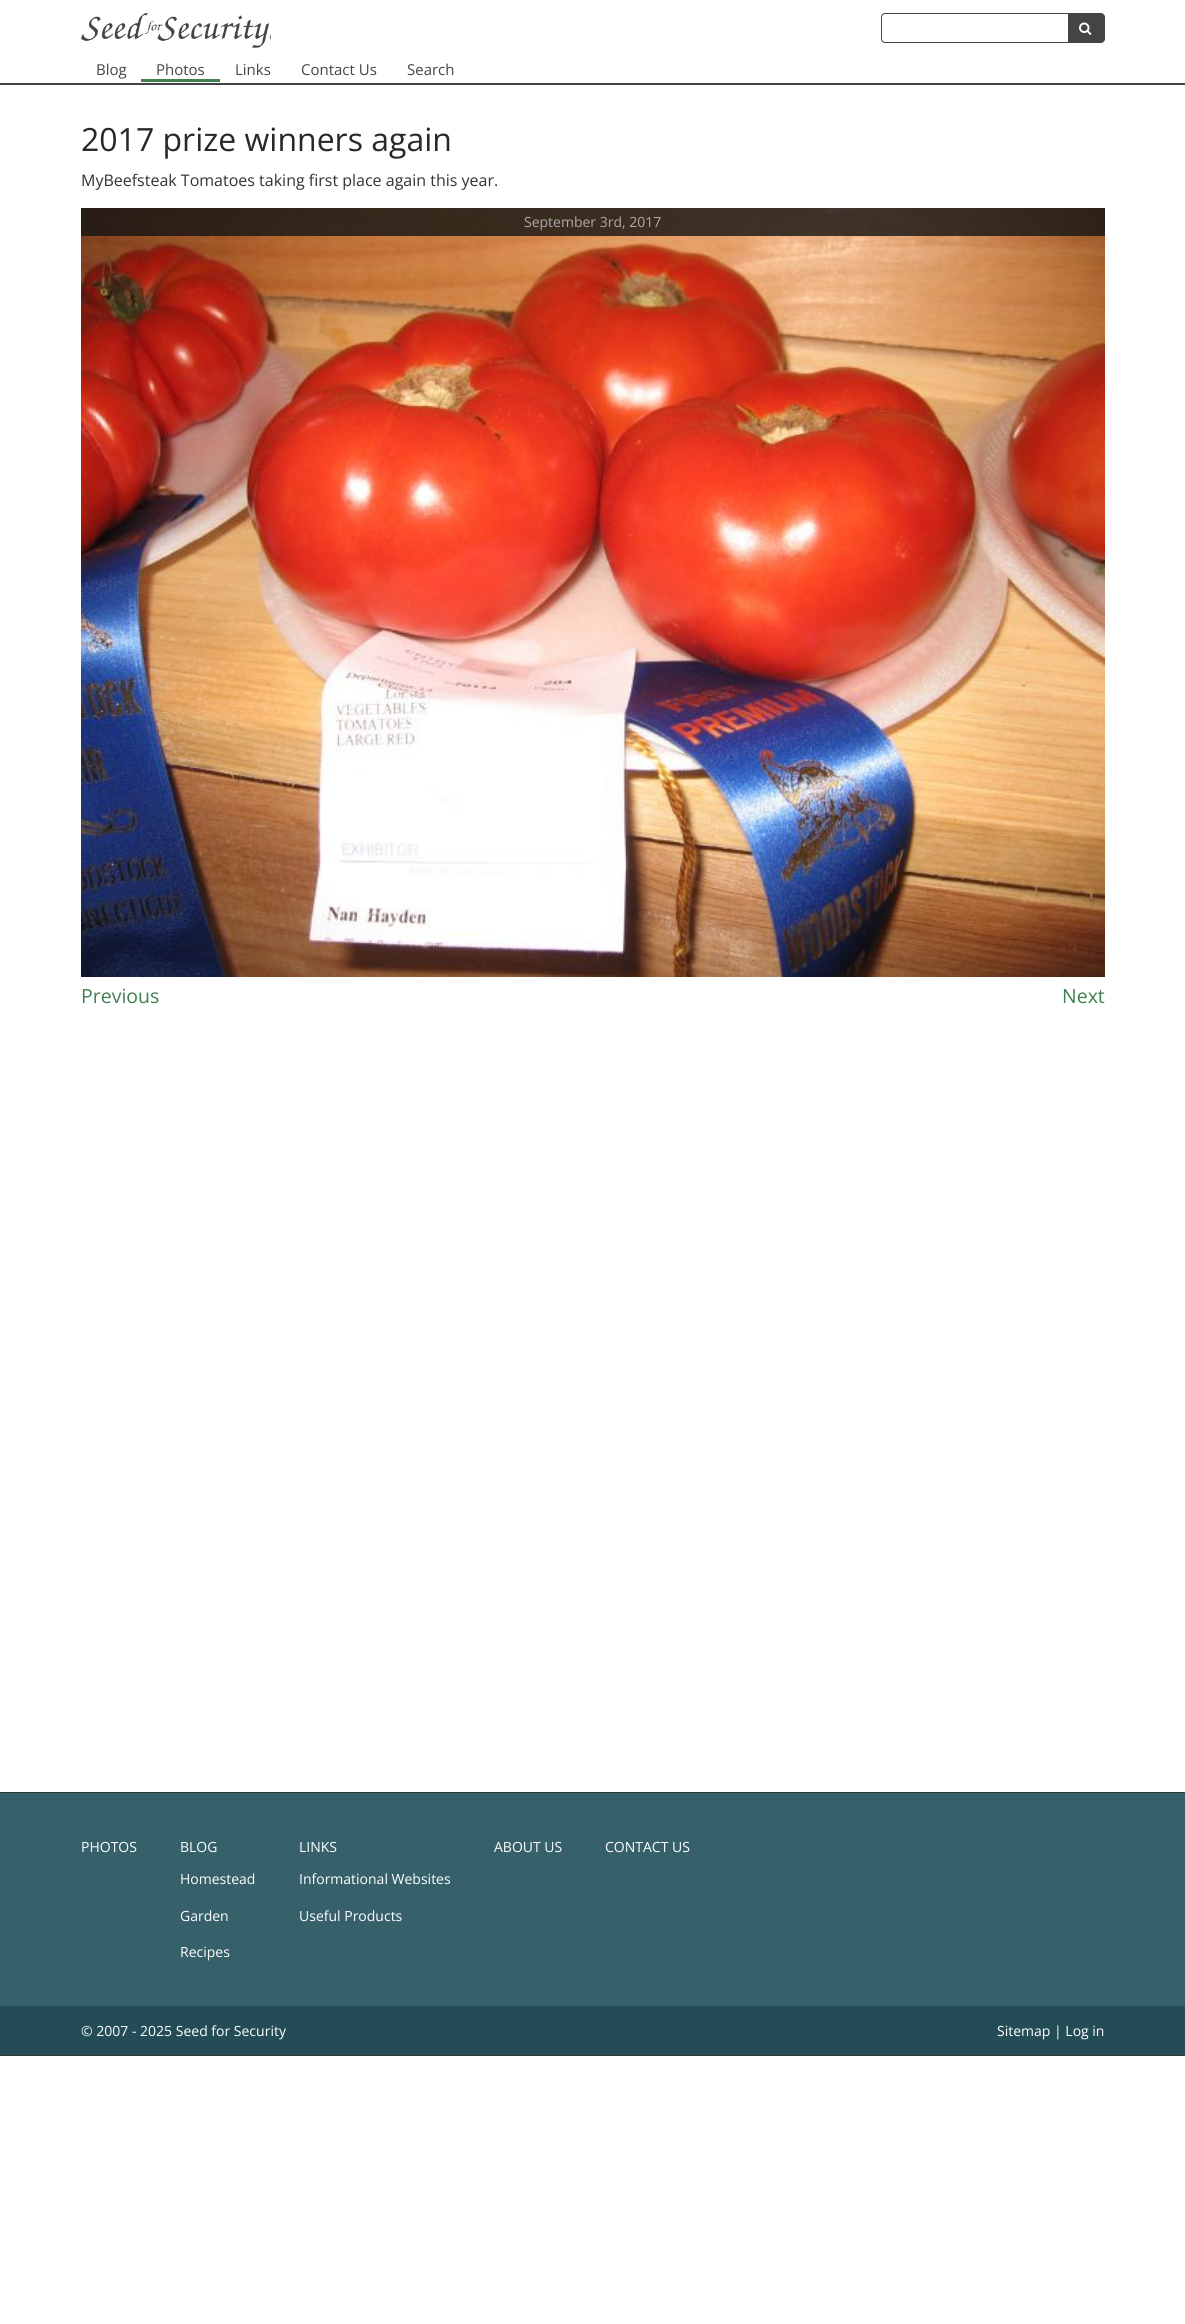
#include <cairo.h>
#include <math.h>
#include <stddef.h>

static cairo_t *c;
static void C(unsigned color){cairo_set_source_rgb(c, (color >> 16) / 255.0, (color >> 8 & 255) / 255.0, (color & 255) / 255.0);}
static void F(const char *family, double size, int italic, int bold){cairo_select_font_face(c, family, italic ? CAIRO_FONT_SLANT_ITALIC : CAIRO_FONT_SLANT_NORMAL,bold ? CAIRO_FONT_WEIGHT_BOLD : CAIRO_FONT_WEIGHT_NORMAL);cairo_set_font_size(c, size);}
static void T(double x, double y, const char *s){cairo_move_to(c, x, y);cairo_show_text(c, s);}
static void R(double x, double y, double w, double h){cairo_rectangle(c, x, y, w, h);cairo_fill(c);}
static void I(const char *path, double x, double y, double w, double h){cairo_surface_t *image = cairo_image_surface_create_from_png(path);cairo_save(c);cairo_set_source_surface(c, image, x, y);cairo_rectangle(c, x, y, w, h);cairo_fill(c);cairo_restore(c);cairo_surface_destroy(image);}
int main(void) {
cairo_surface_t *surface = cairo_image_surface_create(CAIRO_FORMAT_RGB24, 1185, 2324);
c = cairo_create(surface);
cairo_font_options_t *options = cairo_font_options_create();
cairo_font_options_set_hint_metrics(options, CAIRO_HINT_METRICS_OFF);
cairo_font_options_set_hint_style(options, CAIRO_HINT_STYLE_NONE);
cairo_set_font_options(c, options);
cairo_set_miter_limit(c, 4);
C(0xffffff);
cairo_paint(c);
I("1.png",81,13,190,35);
cairo_new_path(c);
cairo_move_to(c,885,13.5);
cairo_line_to(c,1068.5,13.5);
cairo_line_to(c,1068.5,42.5);
cairo_line_to(c,885,42.5);
cairo_curve_to(c,883,42.5,881.5,41,881.5,39);
cairo_line_to(c,881.5,17);
cairo_curve_to(c,881.5,15,883,13.5,885,13.5);
cairo_close_path(c);
C(0x444444);
cairo_set_line_width(c,1);
cairo_stroke(c);
cairo_new_path(c);
cairo_move_to(c,1069,13);
cairo_line_to(c,1101,13);
cairo_curve_to(c,1103,13,1105,15,1105,17);
cairo_line_to(c,1105,39);
cairo_curve_to(c,1105,41,1103,43,1101,43);
cairo_line_to(c,1069,43);
cairo_close_path(c);
cairo_fill(c);
I("2.png",1079,22,13,13);
R(0,83,1185,2);
F("Open Sans",15,0,0);
T(96,75,"Blog");
C(0x408051);
R(141,79,79,3);
C(0x444444);
T(156,75,"Photos");
T(235,75,"Links");
T(301,75,"Contact Us");
T(407,75,"Search");
F("Open Sans",32,0,0);
C(0x282828);
T(81,151,"2017 prize winners again");
F("Open Sans",16,0,0);
C(0x333333);
T(81,186,"MyBeefsteak Tomatoes taking first place again this year.");
I("3.png",81,208,1024,769);
cairo_set_source_rgba(c,0.078,0.078,0.078,0.8);
R(81,208,1024,28);
F("Open Sans",14,0,0);
C(0xaaaaaa);
T(524,227,"September 3rd, 2017");
F("Open Sans",19.5,0,0);
C(0x408051);
T(81,1003,"Previous");
T(1062,1003,"Next");
C(0x36606a);
R(0,1793,1185,213);
C(0x333333);
R(0,1792,1185,1);
R(0,2055,1185,1);
F("Open Sans",14,0,0);
C(0xffffff);
T(81,1852,"PHOTOS");
T(180,1852,"BLOG");
T(180,1884,"Homestead");
T(180,1921,"Garden");
T(180,1957,"Recipes");
T(299,1852,"LINKS");
T(299,1884,"Informational Websites");
T(299,1921,"Useful Products");
T(494,1852,"ABOUT US");
T(605,1852,"CONTACT US");
C(0x234c56);
R(0,2006,1185,49);
C(0xffffff);
T(81,2036,"© 2007 - 2025 Seed for Security");
T(997,2036,"Sitemap | Log in");
cairo_surface_write_to_png(surface, "o.png");
cairo_font_options_destroy(options);
cairo_destroy(c);
cairo_surface_destroy(surface);
return 0;
}
